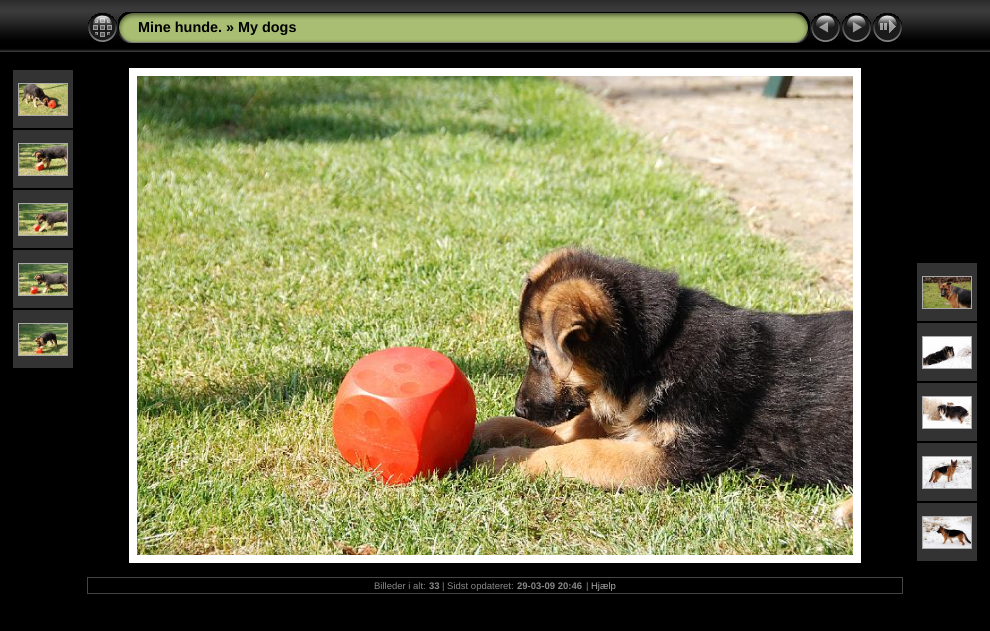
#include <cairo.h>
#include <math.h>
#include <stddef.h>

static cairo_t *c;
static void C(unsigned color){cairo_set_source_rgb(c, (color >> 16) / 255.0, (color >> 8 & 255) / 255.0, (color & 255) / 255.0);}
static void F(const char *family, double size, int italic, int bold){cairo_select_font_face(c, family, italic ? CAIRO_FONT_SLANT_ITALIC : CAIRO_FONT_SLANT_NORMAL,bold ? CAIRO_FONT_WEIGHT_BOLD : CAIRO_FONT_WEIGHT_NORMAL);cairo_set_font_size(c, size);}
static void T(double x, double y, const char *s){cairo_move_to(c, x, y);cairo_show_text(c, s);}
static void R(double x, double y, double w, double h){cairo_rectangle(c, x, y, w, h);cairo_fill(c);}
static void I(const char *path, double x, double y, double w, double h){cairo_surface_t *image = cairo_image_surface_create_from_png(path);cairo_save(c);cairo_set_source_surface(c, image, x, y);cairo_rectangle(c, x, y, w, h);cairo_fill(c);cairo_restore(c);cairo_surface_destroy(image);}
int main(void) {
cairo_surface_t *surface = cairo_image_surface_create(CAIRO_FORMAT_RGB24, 990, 631);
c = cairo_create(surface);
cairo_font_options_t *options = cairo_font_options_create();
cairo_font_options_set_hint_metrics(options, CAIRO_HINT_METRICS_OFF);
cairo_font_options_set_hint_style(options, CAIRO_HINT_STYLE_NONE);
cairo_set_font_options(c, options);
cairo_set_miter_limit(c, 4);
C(0x000000);
cairo_paint(c);
I("1.png",0,0,990,52);
I("2.png",88,13,29,29);
I("3.png",118,12,20,31);
I("4.png",138,12,652,31);
F("Liberation Sans",14.4,0,1);
C(0x000000);
T(138,32,"Mine hunde. » My dogs");
I("5.png",790,12,20,31);
I("6.png",811,13,29,29);
I("7.png",842,13,29,29);
I("8.png",873,13,29,29);
C(0x333333);
R(13,70,60,58);
cairo_rectangle(c,18.5,83.5,49,32);
C(0xaaaaaa);
cairo_set_line_width(c,1);
cairo_stroke(c);
I("9.png",19,84,48,31);
C(0x333333);
R(13,130,60,58);
cairo_rectangle(c,18.5,143.5,49,32);
C(0xaaaaaa);
cairo_stroke(c);
I("10.png",19,144,48,31);
C(0x333333);
R(13,190,60,58);
cairo_rectangle(c,18.5,203.5,49,32);
C(0xaaaaaa);
cairo_stroke(c);
I("11.png",19,204,48,31);
C(0x333333);
R(13,250,60,58);
cairo_rectangle(c,18.5,263.5,49,32);
C(0xaaaaaa);
cairo_stroke(c);
I("12.png",19,264,48,31);
C(0x333333);
R(13,310,60,58);
cairo_rectangle(c,18.5,323.5,49,32);
C(0xaaaaaa);
cairo_stroke(c);
I("13.png",19,324,48,31);
cairo_rectangle(c,133,72,724,487);
C(0xffffff);
cairo_set_line_width(c,8);
cairo_stroke(c);
I("14.png",137,76,716,479);
C(0x333333);
R(917,263,60,58);
cairo_rectangle(c,922.5,276.5,49,32);
C(0xaaaaaa);
cairo_set_line_width(c,1);
cairo_stroke(c);
I("15.png",923,277,48,31);
C(0x333333);
R(917,323,60,58);
cairo_rectangle(c,922.5,336.5,49,32);
C(0xaaaaaa);
cairo_stroke(c);
I("16.png",923,337,48,31);
C(0x333333);
R(917,383,60,58);
cairo_rectangle(c,922.5,396.5,49,32);
C(0xaaaaaa);
cairo_stroke(c);
I("17.png",923,397,48,31);
C(0x333333);
R(917,443,60,58);
cairo_rectangle(c,922.5,456.5,49,32);
C(0xaaaaaa);
cairo_stroke(c);
I("18.png",923,457,48,31);
C(0x333333);
R(917,503,60,58);
cairo_rectangle(c,922.5,516.5,49,32);
C(0xaaaaaa);
cairo_stroke(c);
I("19.png",923,517,48,31);
C(0x444444);
R(87,577,816,1);
R(902,577,1,17);
R(87,593,816,1);
R(87,577,1,17);
F("Liberation Sans",9.5,0,0);
C(0x888888);
T(374,589,"Billeder i alt:");
F("Liberation Sans",9.5,0,1);
T(429,589,"33");
F("Liberation Sans",9.5,0,0);
T(442,589,"| Sidst opdateret:");
F("Liberation Sans",9.5,0,1);
T(517,589,"29-03-09 20:46");
F("Liberation Sans",9.5,0,0);
T(586,589,"|");
C(0xaaaaaa);
T(591,589,"Hjælp");
cairo_surface_write_to_png(surface, "o.png");
cairo_font_options_destroy(options);
cairo_destroy(c);
cairo_surface_destroy(surface);
return 0;
}
